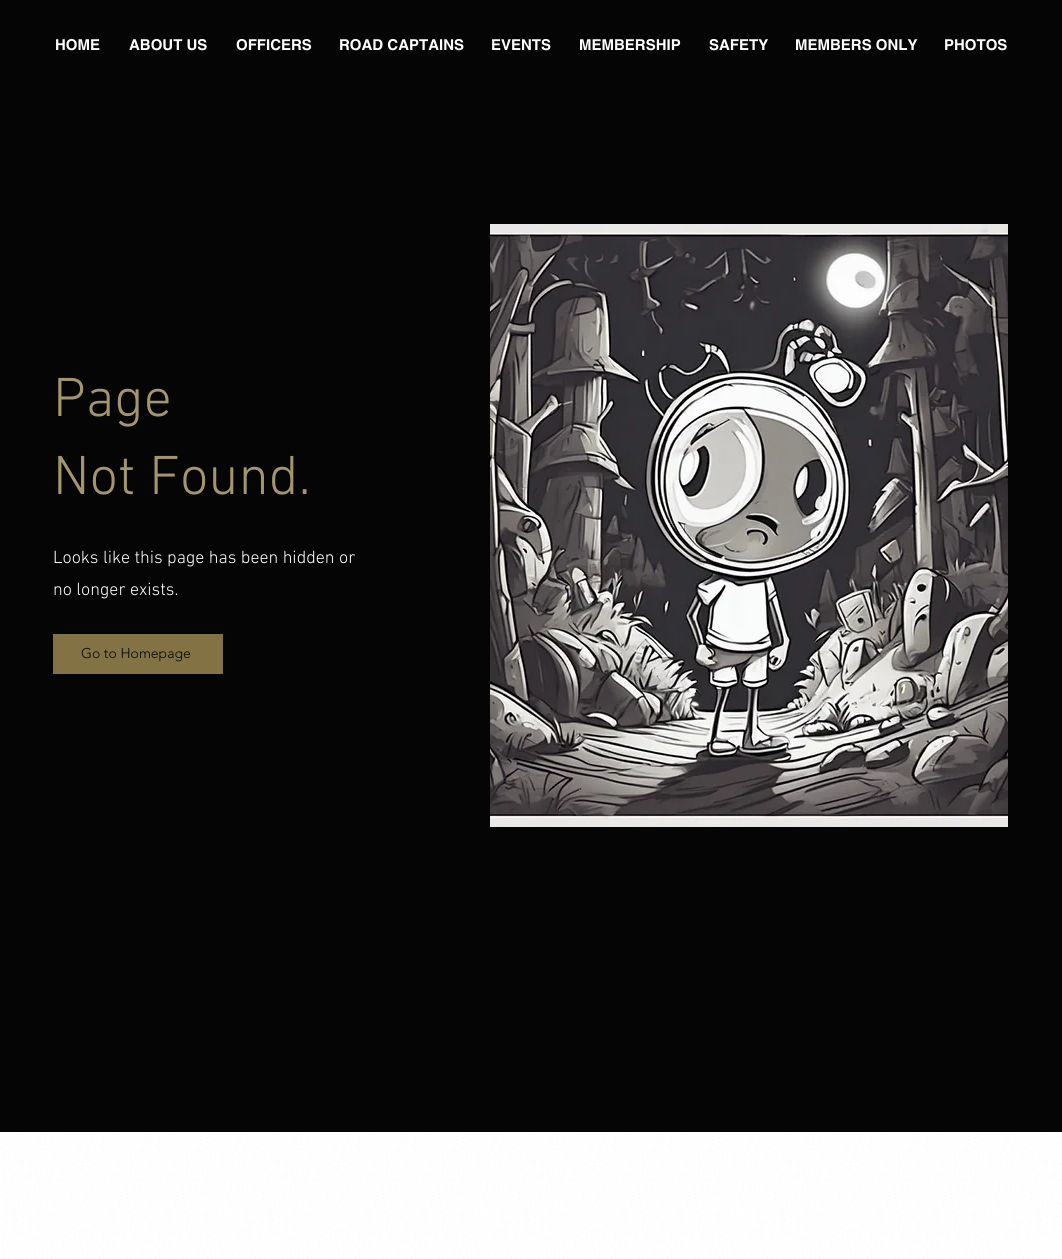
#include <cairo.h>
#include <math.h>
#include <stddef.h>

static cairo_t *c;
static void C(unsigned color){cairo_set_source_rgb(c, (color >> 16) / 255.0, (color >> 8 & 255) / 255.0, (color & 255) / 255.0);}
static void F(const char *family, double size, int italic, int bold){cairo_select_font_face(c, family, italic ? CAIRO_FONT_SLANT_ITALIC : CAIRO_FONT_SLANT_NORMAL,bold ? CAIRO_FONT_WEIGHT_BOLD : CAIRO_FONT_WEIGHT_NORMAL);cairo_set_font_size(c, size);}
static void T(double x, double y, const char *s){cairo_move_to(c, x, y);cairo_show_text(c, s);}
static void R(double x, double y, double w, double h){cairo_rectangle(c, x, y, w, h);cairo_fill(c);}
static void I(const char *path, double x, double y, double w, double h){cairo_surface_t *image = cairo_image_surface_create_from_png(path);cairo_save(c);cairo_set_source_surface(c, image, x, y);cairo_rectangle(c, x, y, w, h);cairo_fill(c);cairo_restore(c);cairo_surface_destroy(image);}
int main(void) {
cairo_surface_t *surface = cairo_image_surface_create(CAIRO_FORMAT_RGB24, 1062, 1259);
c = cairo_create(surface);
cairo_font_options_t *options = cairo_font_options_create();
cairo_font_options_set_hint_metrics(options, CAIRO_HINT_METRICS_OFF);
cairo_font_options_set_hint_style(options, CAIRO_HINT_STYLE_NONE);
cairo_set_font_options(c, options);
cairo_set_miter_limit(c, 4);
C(0xffffff);
cairo_paint(c);
C(0x050505);
R(0,0,1062,1132);
F("helvetica",15,0,1);
C(0xffffff);
T(55,50,"HOME");
T(129,50,"ABOUT US");
T(236,50,"OFFICERS");
T(339,50,"ROAD CAPTAINS");
T(491,50,"EVENTS");
T(579,50,"MEMBERSHIP");
T(709,50,"SAFETY");
T(795,50,"MEMBERS ONLY");
T(944,50,"PHOTOS");
F("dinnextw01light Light",56,0,0);
C(0xa3956d);
T(53,416,"Page");
T(53,494,"Not Found.");
I("1.png",490,224,518,603);
F("dinnextw01light Light",18,0,0);
C(0xffffff);
T(53,563,"Looks like this page has been hidden or");
T(53,595,"no longer exists.");
C(0x837244);
R(53,634,170,40);
F("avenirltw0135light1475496 Light",14,0,0);
C(0x050505);
T(81,658,"Go to Homepage");
I("2.png",1,1132,1061,127);
cairo_surface_write_to_png(surface, "o.png");
cairo_font_options_destroy(options);
cairo_destroy(c);
cairo_surface_destroy(surface);
return 0;
}
